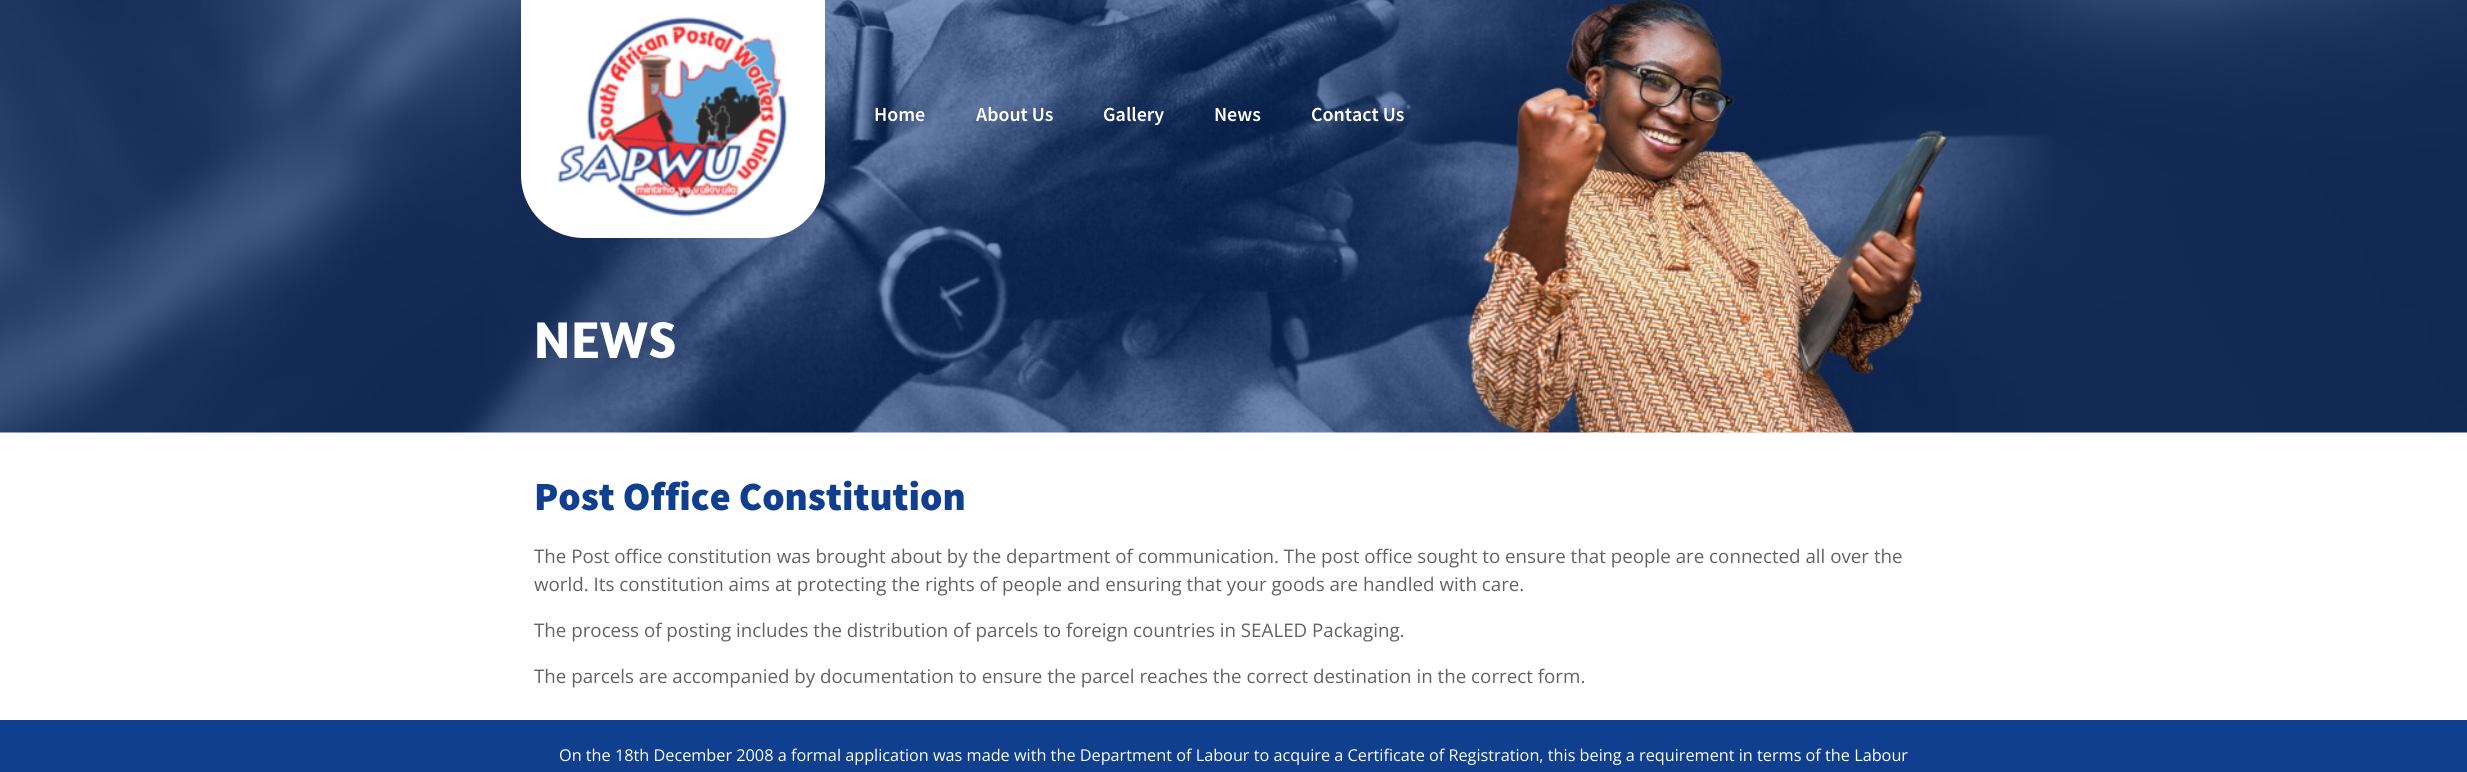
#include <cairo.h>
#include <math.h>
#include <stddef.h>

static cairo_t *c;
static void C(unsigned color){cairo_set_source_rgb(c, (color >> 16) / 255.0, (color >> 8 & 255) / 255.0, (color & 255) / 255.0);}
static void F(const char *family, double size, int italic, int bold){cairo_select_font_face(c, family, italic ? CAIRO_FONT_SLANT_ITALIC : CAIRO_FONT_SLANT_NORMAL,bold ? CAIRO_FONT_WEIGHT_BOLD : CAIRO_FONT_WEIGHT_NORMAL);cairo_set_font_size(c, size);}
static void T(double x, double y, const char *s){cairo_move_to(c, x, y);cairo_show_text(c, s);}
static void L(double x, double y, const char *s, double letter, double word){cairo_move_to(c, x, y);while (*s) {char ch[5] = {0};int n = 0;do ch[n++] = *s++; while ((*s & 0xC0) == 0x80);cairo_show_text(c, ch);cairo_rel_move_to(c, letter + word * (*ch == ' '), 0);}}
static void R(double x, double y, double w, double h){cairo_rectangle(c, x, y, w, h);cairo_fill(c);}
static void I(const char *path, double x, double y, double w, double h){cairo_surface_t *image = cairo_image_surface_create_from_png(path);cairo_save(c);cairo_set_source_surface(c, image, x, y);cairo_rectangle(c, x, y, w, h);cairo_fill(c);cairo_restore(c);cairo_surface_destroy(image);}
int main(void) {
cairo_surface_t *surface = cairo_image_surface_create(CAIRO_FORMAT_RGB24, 2467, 772);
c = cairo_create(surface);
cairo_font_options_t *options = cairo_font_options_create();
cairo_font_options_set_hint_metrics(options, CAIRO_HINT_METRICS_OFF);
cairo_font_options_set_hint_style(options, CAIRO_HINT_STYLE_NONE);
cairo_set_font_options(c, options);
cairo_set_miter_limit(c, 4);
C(0xffffff);
cairo_paint(c);
I("2.png",0,0,2467,433);
C(0xffffff);
cairo_new_path(c);
cairo_move_to(c,521,-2);
cairo_line_to(c,825,-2);
cairo_line_to(c,825,175);
cairo_curve_to(c,825,210,797,238,762,238);
cairo_line_to(c,584,238);
cairo_curve_to(c,549,238,521,210,521,175);
cairo_close_path(c);
cairo_fill(c);
I("1.png",557,16,231,201);
F("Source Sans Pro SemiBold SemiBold",20,0,0);
T(874,121,"Home");
T(976,121,"About Us");
T(1103,121,"Gallery");
T(1214,121,"News");
T(1311,121,"Contact Us");
F("Amaranth",52.5,0,1);
L(534,358,"NEWS",1,0);
F("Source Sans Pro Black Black",40,0,0);
C(0x103f90);
T(534,510,"Post Office Constitution");
F("Open Sans",18.75,0,0);
C(0x636262);
T(534,563,"The Post office constitution was brought about by the department of communication. The post office sought to ensure that people are connected all over the");
T(534,591,"world. Its constitution aims at protecting the rights of people and ensuring that your goods are handled with care.");
T(534,637,"The process of posting includes the distribution of parcels to foreign countries in SEALED Packaging.");
T(534,683,"The parcels are accompanied by documentation to ensure the parcel reaches the correct destination in the correct form.");
C(0x103f90);
R(0,720,2467,52);
F("Open Sans",16.25,0,0);
C(0xffffff);
T(559,761,"On the 18th December 2008 a formal application was made with the Department of Labour to acquire a Certificate of Registration, this being a requirement in terms of the Labour");
cairo_surface_write_to_png(surface, "o.png");
cairo_font_options_destroy(options);
cairo_destroy(c);
cairo_surface_destroy(surface);
return 0;
}
